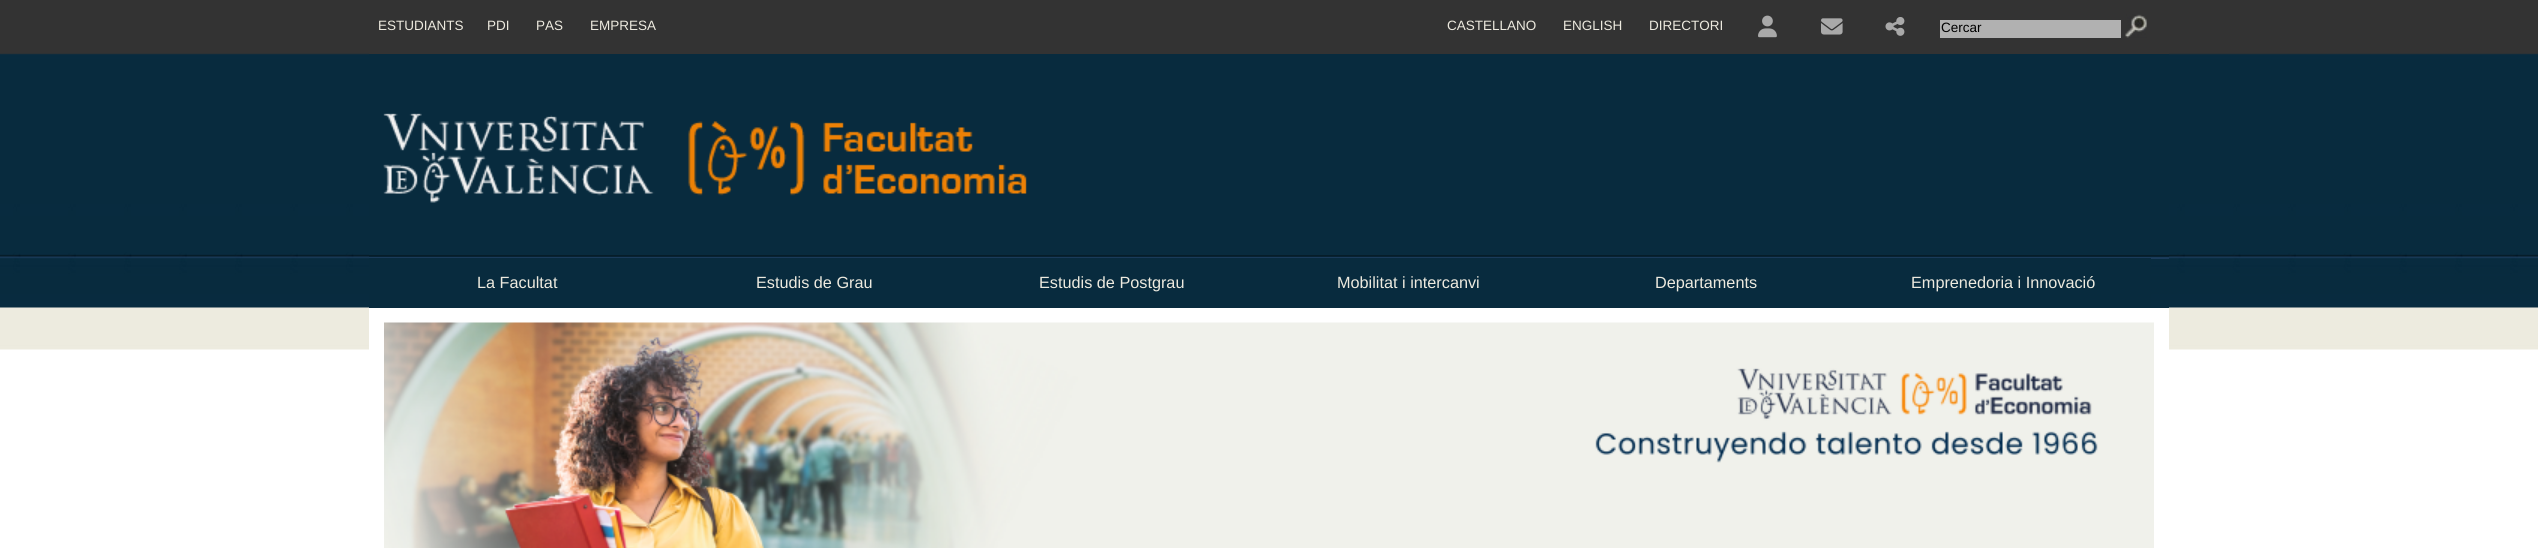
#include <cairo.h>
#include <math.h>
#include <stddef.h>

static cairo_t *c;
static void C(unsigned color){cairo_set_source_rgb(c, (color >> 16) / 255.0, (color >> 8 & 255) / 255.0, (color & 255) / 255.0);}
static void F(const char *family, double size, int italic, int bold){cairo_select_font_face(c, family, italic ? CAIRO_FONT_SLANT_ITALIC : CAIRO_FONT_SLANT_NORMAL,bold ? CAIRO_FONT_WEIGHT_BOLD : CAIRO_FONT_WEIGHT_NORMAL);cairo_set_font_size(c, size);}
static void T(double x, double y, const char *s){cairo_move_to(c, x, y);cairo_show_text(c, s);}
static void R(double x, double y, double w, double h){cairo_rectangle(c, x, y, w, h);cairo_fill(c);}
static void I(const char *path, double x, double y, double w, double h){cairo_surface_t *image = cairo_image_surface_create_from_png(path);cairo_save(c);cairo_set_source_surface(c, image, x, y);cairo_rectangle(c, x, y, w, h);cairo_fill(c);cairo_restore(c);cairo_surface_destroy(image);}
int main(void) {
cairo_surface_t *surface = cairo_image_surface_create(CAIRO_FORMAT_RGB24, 2538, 548);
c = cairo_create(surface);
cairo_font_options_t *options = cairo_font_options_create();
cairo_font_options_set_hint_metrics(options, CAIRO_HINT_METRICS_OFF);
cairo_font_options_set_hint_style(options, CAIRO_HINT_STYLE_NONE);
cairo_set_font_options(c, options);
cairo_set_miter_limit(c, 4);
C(0xffffff);
cairo_paint(c);
I("1.png",0,0,2538,350);
C(0xffffff);
R(369,308,1800,42);
C(0x333333);
R(369,53,1800,1);
F("Liberation Sans",13.5,0,0);
C(0xedeadf);
T(378,30,"ESTUDIANTS");
T(487,30,"PDI");
T(536,30,"PAS");
T(590,30,"EMPRESA");
T(1447,30,"CASTELLANO");
T(1563,30,"ENGLISH");
T(1649,30,"DIRECTORI");
I("2.png",1758,15,19,23);
I("3.png",1821,18,22,17);
I("4.png",1885,17,20,19);
C(0xb1b1b1);
R(1940,20,181,18);
C(0x000000);
T(1941,32,"Cercar");
I("5.png",2125,14,22,24);
C(0x082b3e);
R(369,54,1800,203);
I("6.png",369,255,1800,2);
I("7.png",383,113,644,90);
R(2151,307,18,1);
C(0x1a3b5a);
R(369,257,1800,2);
C(0x082b3e);
R(369,258,1782,50);
F("Liberation Sans",16.25,0,0);
C(0xedeadf);
T(477,288,"La Facultat");
T(756,288,"Estudis de Grau");
T(1039,288,"Estudis de Postgrau");
T(1337,288,"Mobilitat i intercanvi");
T(1655,288,"Departaments");
T(1911,288,"Emprenedoria i Innovació");
I("8.png",384,322,1770,226);
cairo_surface_write_to_png(surface, "o.png");
cairo_font_options_destroy(options);
cairo_destroy(c);
cairo_surface_destroy(surface);
return 0;
}
